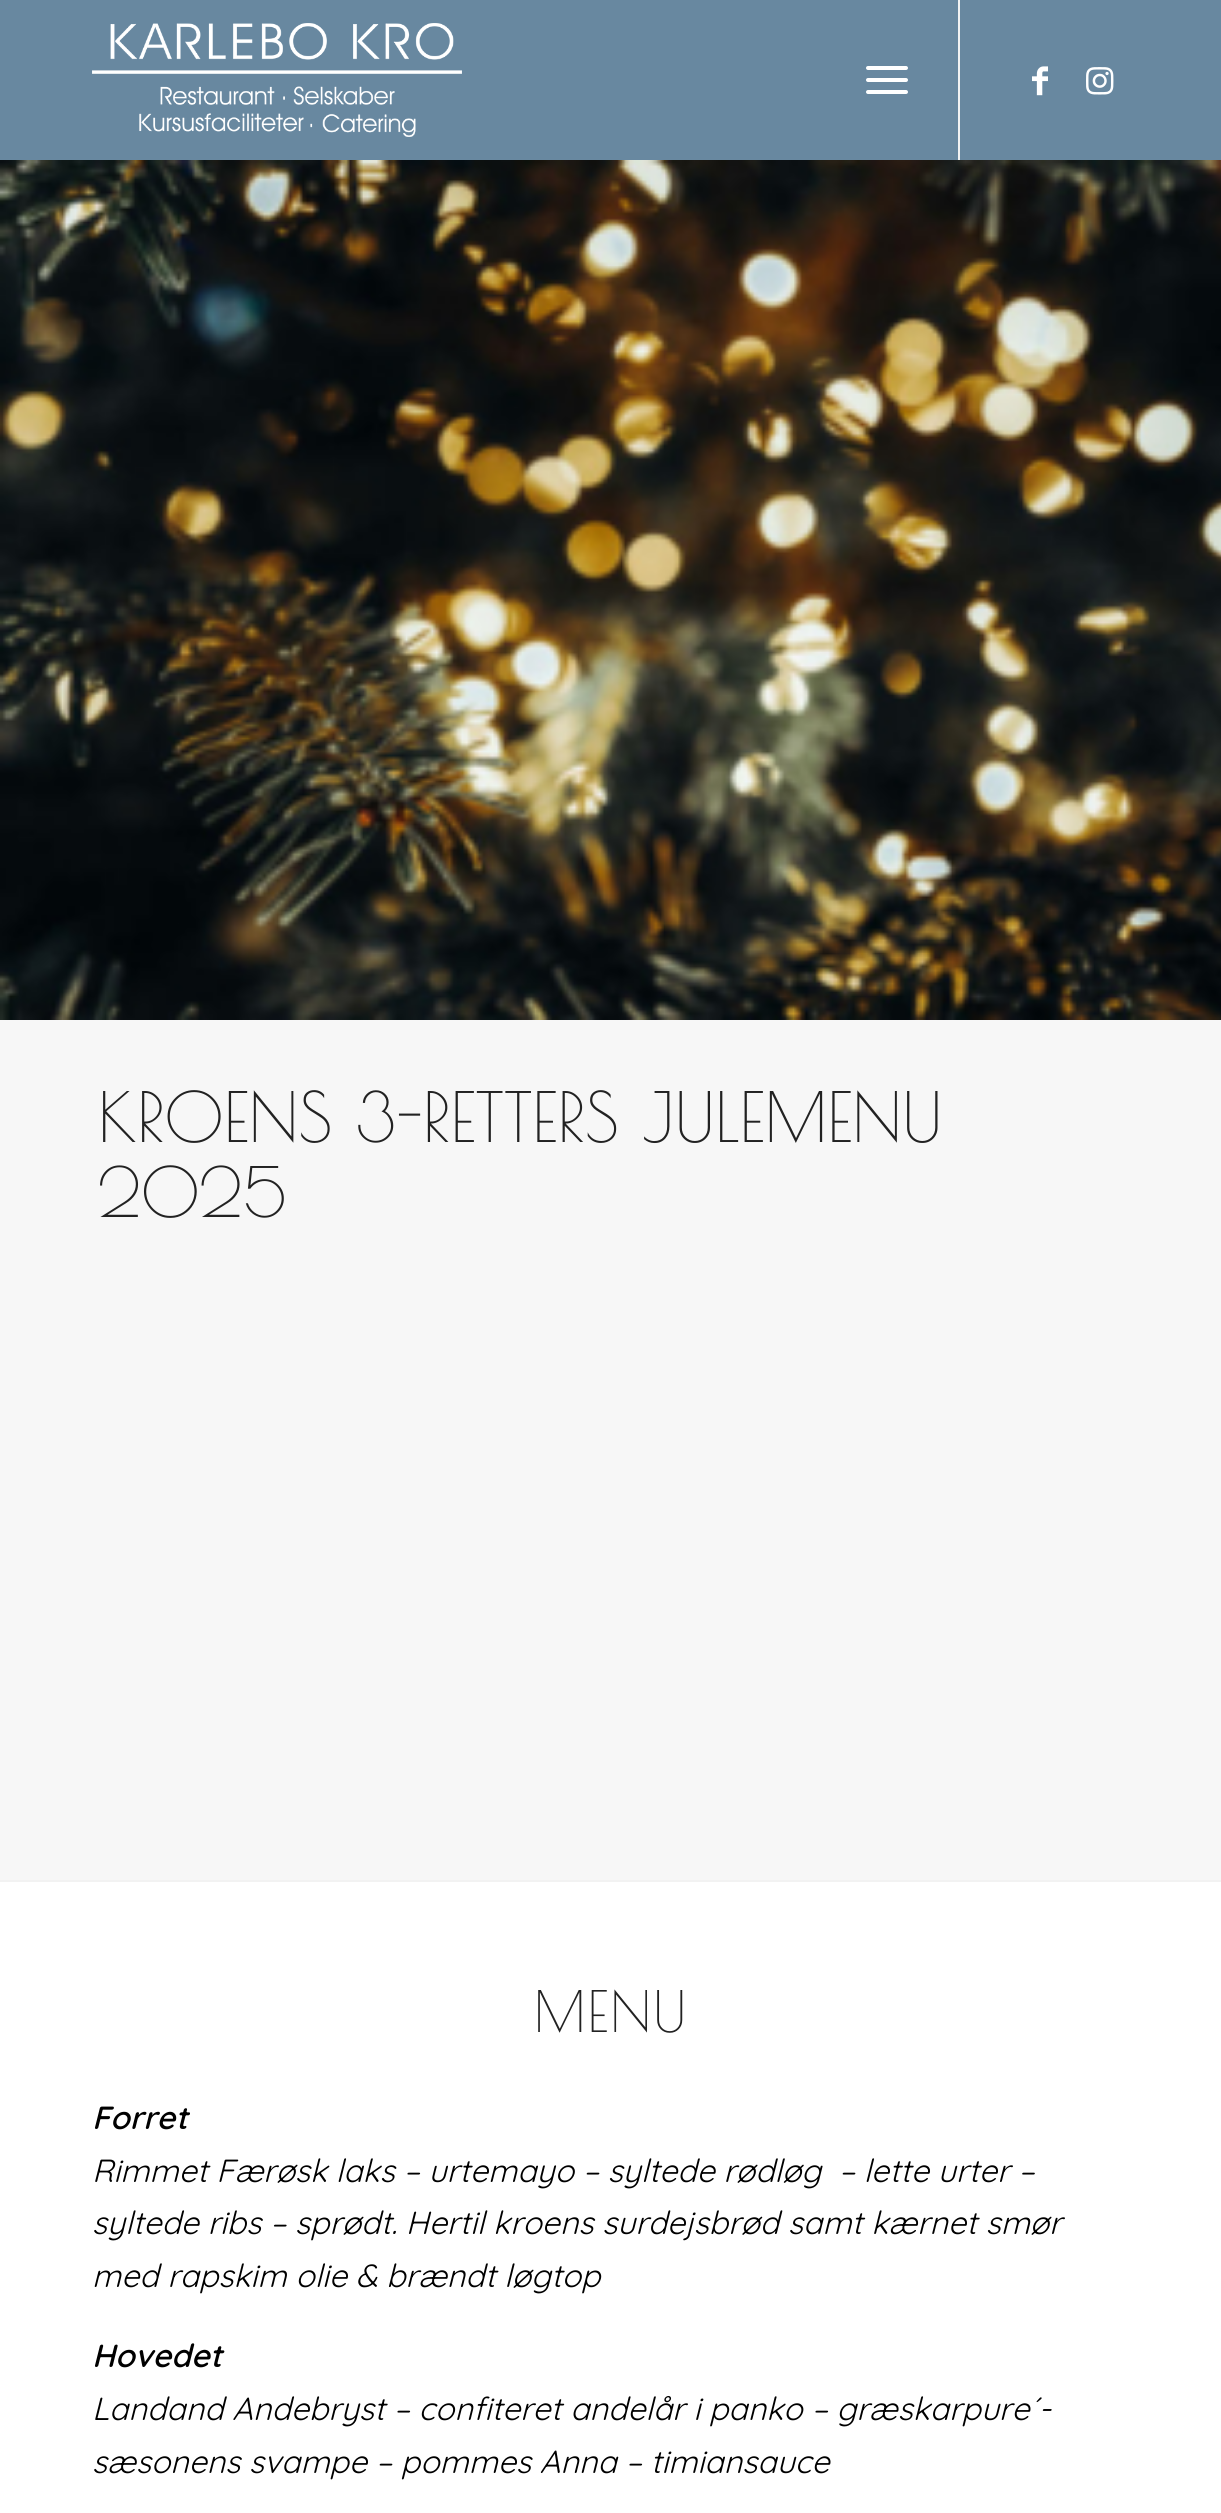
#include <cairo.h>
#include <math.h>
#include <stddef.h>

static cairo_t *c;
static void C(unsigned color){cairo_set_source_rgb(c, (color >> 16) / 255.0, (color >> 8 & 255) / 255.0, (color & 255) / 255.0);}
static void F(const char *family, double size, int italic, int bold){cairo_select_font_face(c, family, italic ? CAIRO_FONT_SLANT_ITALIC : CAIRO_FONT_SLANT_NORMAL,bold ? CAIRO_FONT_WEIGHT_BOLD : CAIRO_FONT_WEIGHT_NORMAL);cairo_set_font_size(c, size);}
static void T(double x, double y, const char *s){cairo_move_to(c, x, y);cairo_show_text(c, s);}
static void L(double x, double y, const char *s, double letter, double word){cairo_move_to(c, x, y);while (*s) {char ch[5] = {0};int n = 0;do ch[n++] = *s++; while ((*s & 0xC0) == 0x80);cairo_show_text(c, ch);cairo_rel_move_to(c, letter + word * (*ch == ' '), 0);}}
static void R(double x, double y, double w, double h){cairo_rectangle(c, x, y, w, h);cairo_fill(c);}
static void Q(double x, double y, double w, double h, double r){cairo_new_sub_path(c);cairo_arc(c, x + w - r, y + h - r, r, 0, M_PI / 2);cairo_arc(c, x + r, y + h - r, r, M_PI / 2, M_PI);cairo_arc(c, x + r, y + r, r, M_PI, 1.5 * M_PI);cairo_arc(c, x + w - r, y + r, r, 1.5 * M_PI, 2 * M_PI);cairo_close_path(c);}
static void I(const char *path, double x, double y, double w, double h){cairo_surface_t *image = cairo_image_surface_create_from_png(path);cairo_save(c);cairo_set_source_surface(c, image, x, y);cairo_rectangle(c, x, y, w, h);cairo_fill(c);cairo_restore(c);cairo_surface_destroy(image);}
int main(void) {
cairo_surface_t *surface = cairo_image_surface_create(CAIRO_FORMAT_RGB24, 1221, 2513);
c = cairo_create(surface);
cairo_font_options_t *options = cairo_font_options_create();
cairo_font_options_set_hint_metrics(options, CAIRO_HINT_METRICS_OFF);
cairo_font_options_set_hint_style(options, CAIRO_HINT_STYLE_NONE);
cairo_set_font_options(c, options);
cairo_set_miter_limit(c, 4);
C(0xffffff);
cairo_paint(c);
C(0x6888a0);
R(0,0,1221,160);
I("1.png",92,23,370,114);
C(0xf2f2f2);
R(958,0,2,160);
C(0xffffff);
Q(866,78,42,4,2);
cairo_fill(c);
Q(866,66,42,4,2);
cairo_fill(c);
Q(866,90,42,4,2);
cairo_fill(c);
I("2.png",1032,66,16,30);
I("3.png",1086,67,28,28);
I("4.png",0,160,1221,860);
C(0xf7f7f7);
R(0,1020,1221,860);
F("Poiret One",68,0,0);
C(0x222222);
T(98,1142,"KROENS 3-RETTERS JULEMENU");
T(98,1217,"2025");
C(0xf2f2f2);
R(0,1880,1221,2);
F("Poiret One",56,0,0);
C(0x222222);
L(534,2032,"MENU",2,0);
F("Quicksand SemiBold",32,1,0);
C(0x000000);
T(92,2129,"Forret");
F("Quicksand",32,1,0);
T(92,2182,"Rimmet Færøsk laks – urtemayo – syltede rødløg  – lette urter –");
T(92,2234,"syltede ribs – sprødt. Hertil kroens surdejsbrød samt kærnet smør");
T(92,2287,"med rapskim olie & brændt løgtop");
F("Quicksand SemiBold",32,1,0);
T(92,2367,"Hovedet");
F("Quicksand",32,1,0);
T(92,2420,"Landand Andebryst – confiteret andelår i panko – græskarpure´-");
T(92,2473,"sæsonens svampe – pommes Anna – timiansauce");
cairo_surface_write_to_png(surface, "o.png");
cairo_font_options_destroy(options);
cairo_destroy(c);
cairo_surface_destroy(surface);
return 0;
}
